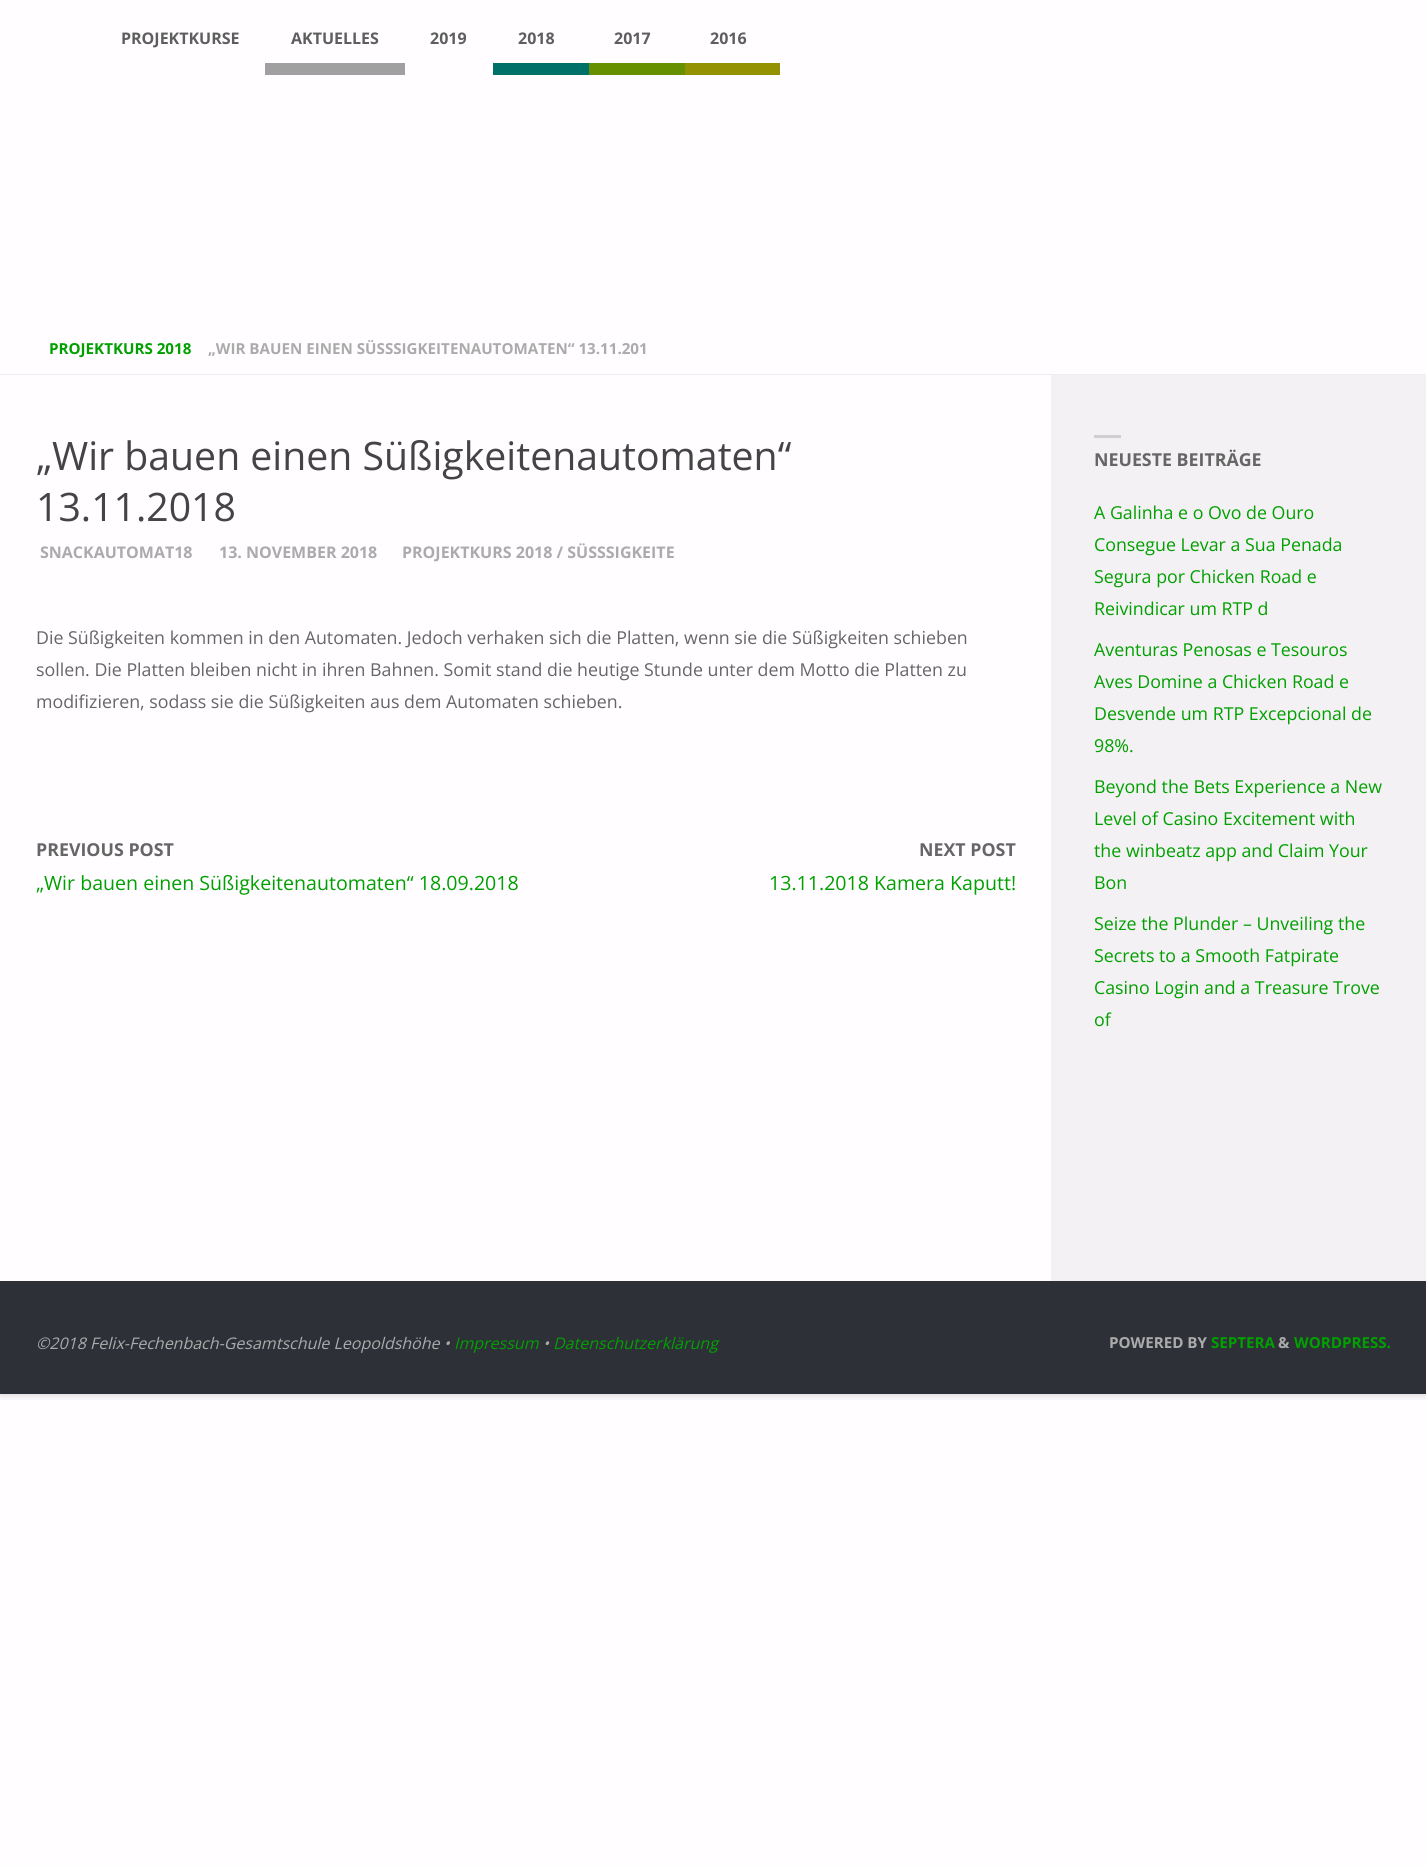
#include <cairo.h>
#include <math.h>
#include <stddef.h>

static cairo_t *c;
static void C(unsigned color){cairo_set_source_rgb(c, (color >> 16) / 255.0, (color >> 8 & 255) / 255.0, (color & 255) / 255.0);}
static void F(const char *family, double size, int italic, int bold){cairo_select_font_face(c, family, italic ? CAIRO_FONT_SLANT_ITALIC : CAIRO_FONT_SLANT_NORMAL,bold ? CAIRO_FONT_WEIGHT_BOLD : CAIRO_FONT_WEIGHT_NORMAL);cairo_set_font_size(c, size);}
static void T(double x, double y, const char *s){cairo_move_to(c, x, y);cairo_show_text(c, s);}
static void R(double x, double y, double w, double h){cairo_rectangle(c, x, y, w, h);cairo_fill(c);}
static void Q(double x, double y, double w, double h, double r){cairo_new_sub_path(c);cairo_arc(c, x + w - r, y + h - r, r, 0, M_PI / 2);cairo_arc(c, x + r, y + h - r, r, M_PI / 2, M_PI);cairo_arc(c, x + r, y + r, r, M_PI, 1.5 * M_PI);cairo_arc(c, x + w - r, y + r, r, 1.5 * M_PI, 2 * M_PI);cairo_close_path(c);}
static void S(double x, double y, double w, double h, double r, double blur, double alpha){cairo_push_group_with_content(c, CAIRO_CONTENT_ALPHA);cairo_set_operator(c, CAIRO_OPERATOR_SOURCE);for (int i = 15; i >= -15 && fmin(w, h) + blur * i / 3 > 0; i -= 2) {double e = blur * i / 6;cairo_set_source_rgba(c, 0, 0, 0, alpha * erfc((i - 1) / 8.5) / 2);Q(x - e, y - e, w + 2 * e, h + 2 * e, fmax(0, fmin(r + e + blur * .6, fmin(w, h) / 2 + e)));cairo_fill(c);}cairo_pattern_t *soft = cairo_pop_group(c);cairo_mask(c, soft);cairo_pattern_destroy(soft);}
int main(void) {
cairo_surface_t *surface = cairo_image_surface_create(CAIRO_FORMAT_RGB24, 1426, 1867);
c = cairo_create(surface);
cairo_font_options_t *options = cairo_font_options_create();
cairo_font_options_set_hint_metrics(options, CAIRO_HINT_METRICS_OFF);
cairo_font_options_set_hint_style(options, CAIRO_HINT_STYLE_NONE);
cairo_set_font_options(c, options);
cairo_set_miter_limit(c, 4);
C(0xfffdff);
cairo_paint(c);
cairo_save(c);
cairo_rectangle(c,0,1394,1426,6);
cairo_clip(c);
C(0x000000);
S(0,0,1426,1394,0,5,.2);
cairo_restore(c);
F("Open Sans",16,0,1);
C(0x5e5e5e);
T(121,44,"PROJEKTKURSE");
C(0xa0a0a0);
R(265,63,140,12);
C(0x5e5e5e);
T(291,44,"AKTUELLES");
T(430,44,"2019");
C(0x007169);
R(493,63,96,12);
C(0x5e5e5e);
T(518,44,"2018");
C(0x669000);
R(589,63,96,12);
C(0x5e5e5e);
T(614,44,"2017");
C(0x949201);
R(685,63,95,12);
C(0x5e5e5e);
T(710,44,"2016");
C(0xeeecee);
R(0,374,1426,1);
F("Open Sans",15.15,0,1);
C(0x00a000);
T(49,354,"PROJEKTKURS 2018");
C(0xababab);
T(208,354,"„WIR BAUEN EINEN SÜSSSIGKEITENAUTOMATEN“ 13.11.201");
F("Open Sans",39.2,0,0);
C(0x444444);
T(36,470,"„Wir bauen einen Süßigkeitenautomaten“");
T(36,521,"13.11.2018");
F("Open Sans",16,0,1);
C(0xababab);
T(40,558,"SNACKAUTOMAT18");
T(219,558,"13. NOVEMBER 2018");
T(402,558,"PROJEKTKURS 2018 / SÜSSSIGKEITE");
F("Open Sans",17.8,0,0);
C(0x666666);
T(36,644,"Die Süßigkeiten kommen in den Automaten. Jedoch verhaken sich die Platten, wenn sie die Süßigkeiten schieben");
T(36,676,"sollen. Die Platten bleiben nicht in ihren Bahnen. Somit stand die heutige Stunde unter dem Motto die Platten zu");
T(36,708,"modifizieren, sodass sie die Süßigkeiten aus dem Automaten schieben.");
F("Open Sans",17.8,0,1);
T(36,856,"PREVIOUS POST");
F("Open Sans",19.6,0,0);
C(0x00a000);
T(36,890,"„Wir bauen einen Süßigkeitenautomaten“ 18.09.2018");
F("Open Sans",17.8,0,1);
C(0x666666);
T(919,856,"NEXT POST");
F("Open Sans",19.6,0,0);
C(0x00a000);
T(769,890,"13.11.2018 Kamera Kaputt!");
C(0xf3f1f3);
R(1051,375,375,906);
C(0xd0ced0);
R(1094,435,27,3);
F("Open Sans",17.8,0,1);
C(0x666666);
T(1094,466,"NEUESTE BEITRÄGE");
F("Open Sans",17.8,0,0);
C(0x00a000);
T(1094,519,"A Galinha e o Ovo de Ouro");
T(1094,551,"Consegue Levar a Sua Penada");
T(1094,583,"Segura por Chicken Road e");
T(1094,615,"Reivindicar um RTP d");
T(1094,656,"Aventuras Penosas e Tesouros");
T(1094,688,"Aves Domine a Chicken Road e");
T(1094,720,"Desvende um RTP Excepcional de");
T(1094,752,"98%.");
T(1094,793,"Beyond the Bets Experience a New");
T(1094,825,"Level of Casino Excitement with");
T(1094,857,"the winbeatz app and Claim Your");
T(1094,889,"Bon");
T(1094,930,"Seize the Plunder – Unveiling the");
T(1094,962,"Secrets to a Smooth Fatpirate");
T(1094,994,"Casino Login and a Treasure Trove");
T(1094,1026,"of");
C(0x2e3038);
R(0,1281,1426,113);
F("Open Sans",16,1,0);
C(0xababab);
T(36,1349,"©2018 Felix-Fechenbach-Gesamtschule Leopoldshöhe •");
C(0x00a000);
T(454,1349,"Impressum");
C(0xababab);
T(543,1349,"•");
C(0x00a000);
T(553,1349,"Datenschutzerklärung");
F("Open Sans",15.15,0,1);
C(0xababab);
T(1109,1348,"POWERED BY");
C(0x00a000);
T(1211,1348,"SEPTERA");
C(0xababab);
T(1278,1348,"&");
C(0x00a000);
T(1294,1348,"WORDPRESS.");
cairo_surface_write_to_png(surface, "o.png");
cairo_font_options_destroy(options);
cairo_destroy(c);
cairo_surface_destroy(surface);
return 0;
}
